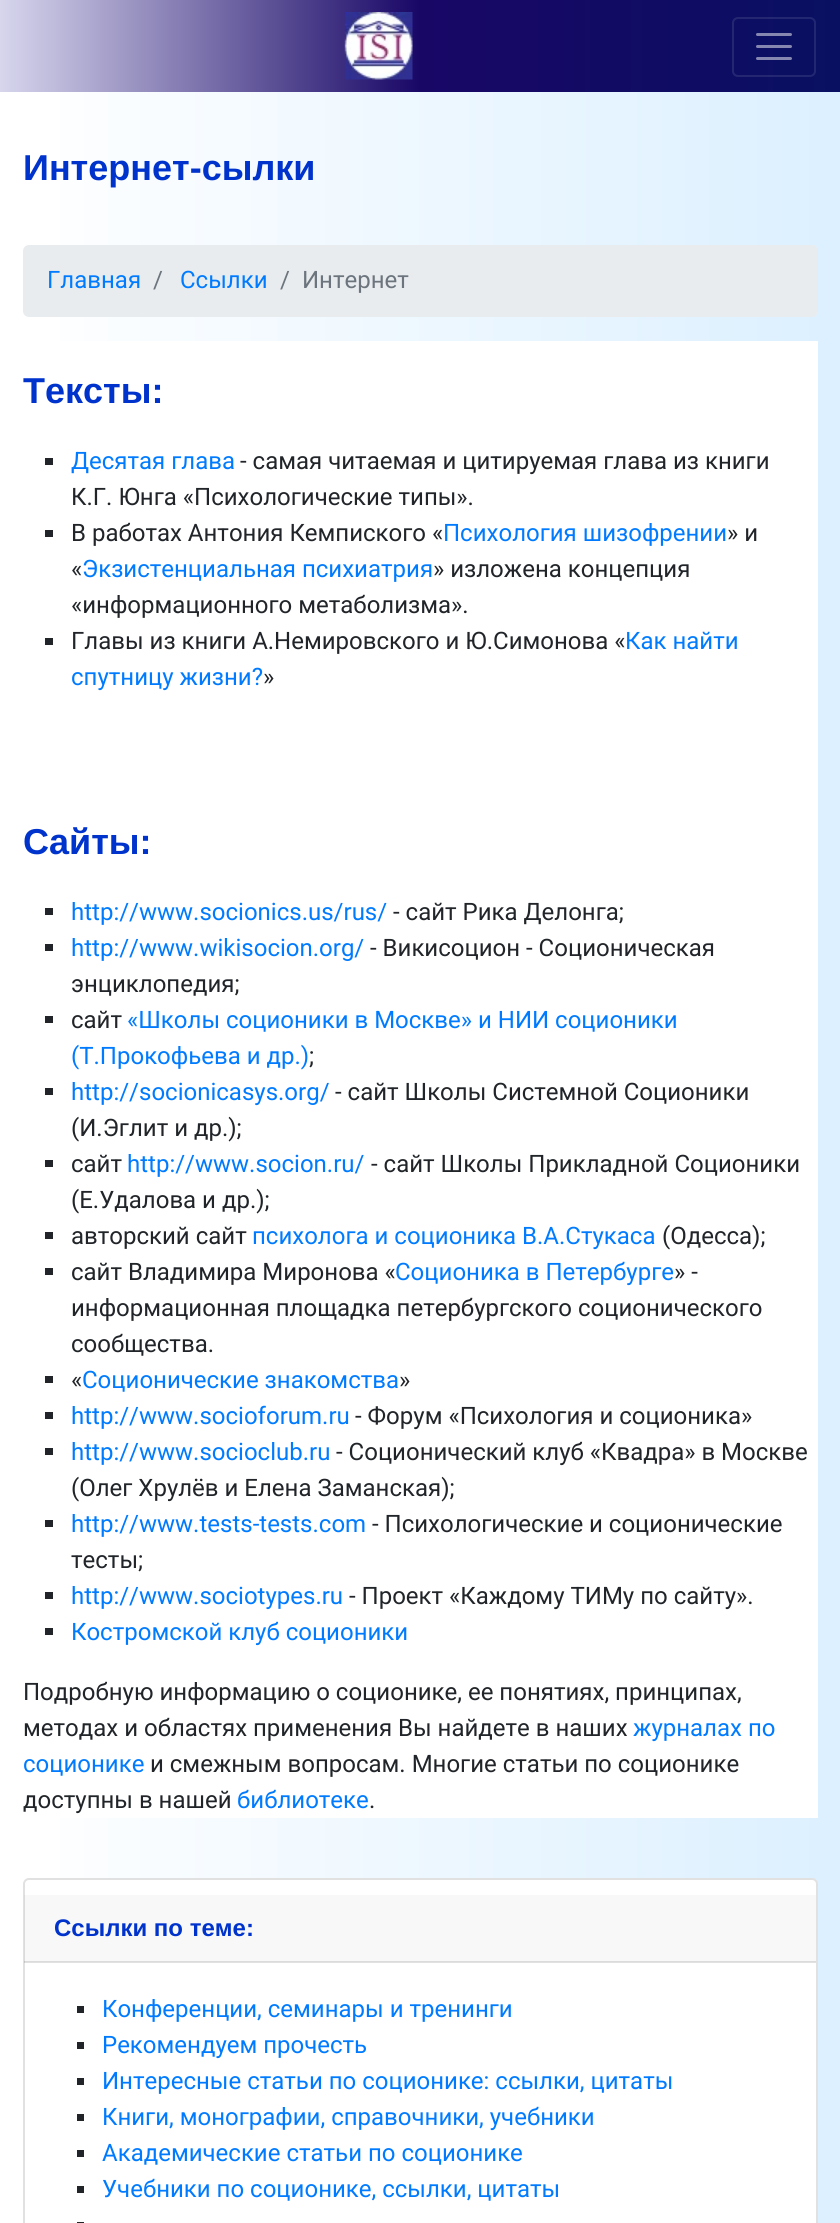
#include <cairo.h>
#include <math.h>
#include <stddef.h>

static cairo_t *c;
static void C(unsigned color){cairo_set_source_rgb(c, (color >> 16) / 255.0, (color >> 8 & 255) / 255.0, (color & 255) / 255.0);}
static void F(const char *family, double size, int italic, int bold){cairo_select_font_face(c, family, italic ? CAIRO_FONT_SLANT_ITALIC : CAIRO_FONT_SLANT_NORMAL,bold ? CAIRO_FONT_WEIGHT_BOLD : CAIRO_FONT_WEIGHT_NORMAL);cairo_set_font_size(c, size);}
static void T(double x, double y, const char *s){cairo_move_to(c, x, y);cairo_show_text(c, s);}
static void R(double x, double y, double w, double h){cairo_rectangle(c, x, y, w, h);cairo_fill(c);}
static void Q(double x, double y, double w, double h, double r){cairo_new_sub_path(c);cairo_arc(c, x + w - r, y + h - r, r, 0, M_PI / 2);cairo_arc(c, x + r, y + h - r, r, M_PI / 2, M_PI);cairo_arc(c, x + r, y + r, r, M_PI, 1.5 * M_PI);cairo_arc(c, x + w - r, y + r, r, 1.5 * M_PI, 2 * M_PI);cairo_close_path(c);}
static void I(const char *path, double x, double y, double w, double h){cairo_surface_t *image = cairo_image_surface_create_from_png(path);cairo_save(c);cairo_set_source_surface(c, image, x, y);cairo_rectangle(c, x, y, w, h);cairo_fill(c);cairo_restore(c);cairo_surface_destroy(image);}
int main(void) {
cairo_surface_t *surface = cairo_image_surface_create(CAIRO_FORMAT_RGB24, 840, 2223);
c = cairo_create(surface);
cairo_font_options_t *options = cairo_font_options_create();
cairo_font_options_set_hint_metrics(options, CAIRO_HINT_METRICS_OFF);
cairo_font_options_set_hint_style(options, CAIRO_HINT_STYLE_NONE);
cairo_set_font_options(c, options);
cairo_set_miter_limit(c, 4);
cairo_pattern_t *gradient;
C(0xffffff);
cairo_paint(c);
gradient = cairo_pattern_create_linear(840,1352,0,1352);
cairo_pattern_add_color_stop_rgba(gradient,0,0.863,0.941,1,1);
cairo_pattern_add_color_stop_rgba(gradient,1,1,1,1,1);
cairo_set_source(c,gradient);
cairo_pattern_destroy(gradient);
R(60,92,780,2131);
gradient = cairo_pattern_create_linear(0,46,840,46);
cairo_pattern_add_color_stop_rgba(gradient,0,0.843,0.839,0.929,1);
cairo_pattern_add_color_stop_rgba(gradient,.5,0.098,0.027,0.4,1);
cairo_pattern_add_color_stop_rgba(gradient,1,0.035,0.063,0.384,1);
cairo_set_source(c,gradient);
cairo_pattern_destroy(gradient);
R(0,0,840,92);
I("1.png",344,12,69,68);
Q(733,18,82,58,5);
cairo_set_source_rgba(c,1,1,1,0.1);
cairo_stroke(c);
cairo_new_path(c);
cairo_move_to(c,757.5,34.5);
cairo_line_to(c,790.5,34.5);
cairo_move_to(c,757.5,46.5);
cairo_line_to(c,790.5,46.5);
cairo_move_to(c,757.5,58.5);
cairo_line_to(c,790.5,58.5);
C(0x8587b1);
cairo_set_line_width(c,3);
cairo_set_line_cap(c,CAIRO_LINE_CAP_ROUND);
cairo_stroke(c);
F("Liberation Sans",36,0,1);
C(0x0033cc);
T(23,180,"Интернет-сылки");
C(0xe9ecef);
Q(23,245,795,72,6);
cairo_fill(c);
F("Roboto",24,0,0);
C(0x007bff);
T(47,288,"Главная");
C(0x6c757d);
T(153,288,"/");
C(0x007bff);
T(180,288,"Ссылки");
C(0x6c757d);
T(280,288,"/");
T(302,288,"Интернет");
C(0xffffff);
R(60,341,758,1477);
F("Liberation Sans",36,0,1);
C(0x0033cc);
T(23,403,"Тексты:");
C(0x212529);
R(45,458,8,7);
F("Roboto",24,0,0);
C(0x007bff);
T(71,469,"Десятая глава");
C(0x212529);
T(240,469,"- самая читаемая и цитируемая глава из книги");
T(71,505,"К.Г. Юнга «Психологические типы».");
R(45,530,8,7);
T(71,541,"В работах Антония Кемпиского «");
C(0x007bff);
T(443,541,"Психология шизофрении");
C(0x212529);
T(727,541,"» и");
T(71,577,"«");
C(0x007bff);
T(82,577,"Экзистенциальная психиатрия");
C(0x212529);
T(433,577,"» изложена концепция");
T(71,613,"«информационного метаболизма».");
R(45,638,8,7);
T(71,649,"Главы из книги А.Немировского и Ю.Симонова «");
C(0x007bff);
T(625,649,"Как найти");
T(71,685,"спутницу жизни?");
C(0x212529);
T(263,685,"»");
F("Liberation Sans",36,0,1);
C(0x0033cc);
T(23,854,"Сайты:");
C(0x212529);
R(45,908,8,7);
F("Roboto",24,0,0);
C(0x007bff);
T(71,920,"http://www.socionics.us/rus/");
C(0x212529);
T(393,920,"- сайт Рика Делонга;");
R(45,944,8,7);
C(0x007bff);
T(71,956,"http://www.wikisocion.org/");
C(0x212529);
T(370,956,"- Викисоцион - Соционическая");
T(71,992,"энциклопедия;");
R(45,1016,8,7);
T(71,1028,"сайт");
C(0x007bff);
T(127,1028,"«Школы соционики в Москве» и НИИ соционики");
T(71,1064,"(Т.Прокофьева и др.)");
C(0x212529);
T(309,1064,";");
R(45,1088,8,7);
C(0x007bff);
T(71,1100,"http://socionicasys.org/");
C(0x212529);
T(335,1100,"- сайт Школы Системной Соционики");
T(71,1136,"(И.Эглит и др.);");
R(45,1160,8,7);
T(71,1172,"сайт");
C(0x007bff);
T(127,1172,"http://www.socion.ru/");
C(0x212529);
T(371,1172,"- сайт Школы Прикладной Соционики");
T(71,1208,"(Е.Удалова и др.);");
R(45,1232,8,7);
T(71,1244,"авторский сайт");
C(0x007bff);
T(252,1244,"психолога и соционика В.А.Стукаса");
C(0x212529);
T(662,1244,"(Одесса);");
R(45,1268,8,7);
T(71,1280,"сайт Владимира Миронова «");
C(0x007bff);
T(395,1280,"Соционика в Петербурге");
C(0x212529);
T(674,1280,"» -");
T(71,1316,"информационная площадка петербургского соционического");
T(71,1352,"сообщества.");
R(45,1376,8,7);
T(71,1388,"«");
C(0x007bff);
T(82,1388,"Соционические знакомства");
C(0x212529);
T(399,1388,"»");
R(45,1412,8,7);
C(0x007bff);
T(71,1424,"http://www.socioforum.ru");
C(0x212529);
T(355,1424,"- Форум «Психология и соционика»");
R(45,1448,8,7);
C(0x007bff);
T(71,1460,"http://www.socioclub.ru");
C(0x212529);
T(336,1460,"- Соционический клуб «Квадра» в Москве");
T(71,1496,"(Олег Хрулёв и Елена Заманская);");
R(45,1520,8,7);
C(0x007bff);
T(71,1532,"http://www.tests-tests.com");
C(0x212529);
T(372,1532,"- Психологические и соционические");
T(71,1568,"тесты;");
R(45,1592,8,7);
C(0x007bff);
T(71,1604,"http://www.sociotypes.ru");
C(0x212529);
T(349,1604,"- Проект «Каждому ТИМу по сайту».");
R(45,1628,8,7);
C(0x007bff);
T(71,1640,"Костромской клуб соционики");
C(0x212529);
T(23,1700,"Подробную информацию о соционике, ее понятиях, принципах,");
T(23,1736,"методах и областях применения Вы найдете в наших");
C(0x007bff);
T(633,1736,"журналах по");
T(23,1772,"соционике");
C(0x212529);
T(150,1772,"и смежным вопросам. Многие статьи по соционике");
T(23,1808,"доступны в нашей");
C(0x007bff);
T(237,1808,"библиотеке");
C(0x212529);
T(369,1808,".");
C(0xffffff);
Q(23,1878,795,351,6);
cairo_fill(c);
Q(24,1879,793,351,5);
cairo_set_source_rgba(c,0,0,0,0.12);
cairo_set_line_width(c,2);
cairo_set_line_cap(c,CAIRO_LINE_CAP_BUTT);
cairo_stroke(c);
cairo_set_source_rgba(c,0,0,0,0.03);
R(24,1895,792,67);
cairo_set_source_rgba(c,0,0,0,0.12);
R(24,1961,792,2);
F("Liberation Sans",24,0,1);
C(0x0033cc);
T(54,1936,"Ссылки по теме:");
C(0x212529);
R(77,2006,7,7);
F("Roboto",24,0,0);
C(0x007bff);
T(102,2017,"Конференции, семинары и тренинги");
C(0x212529);
R(77,2042,7,7);
C(0x007bff);
T(102,2053,"Рекомендуем прочесть");
C(0x212529);
R(77,2078,7,7);
C(0x007bff);
T(102,2089,"Интересные статьи по соционике: ссылки, цитаты");
C(0x212529);
R(77,2114,7,7);
C(0x007bff);
T(102,2125,"Книги, монографии, справочники, учебники");
C(0x212529);
R(77,2150,7,7);
C(0x007bff);
T(102,2161,"Академические статьи по соционике");
C(0x212529);
R(77,2186,7,7);
C(0x007bff);
T(102,2197,"Учебники по соционике, ссылки, цитаты");
C(0x212529);
R(77,2222,7,1);
cairo_surface_write_to_png(surface, "o.png");
cairo_font_options_destroy(options);
cairo_destroy(c);
cairo_surface_destroy(surface);
return 0;
}
